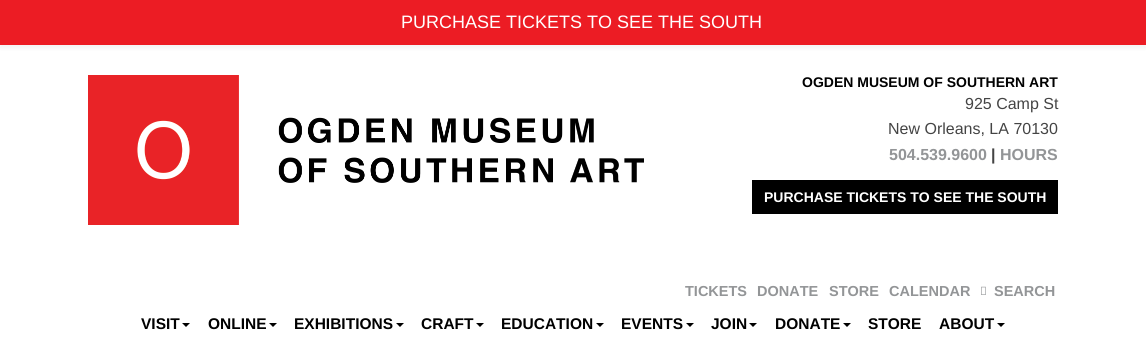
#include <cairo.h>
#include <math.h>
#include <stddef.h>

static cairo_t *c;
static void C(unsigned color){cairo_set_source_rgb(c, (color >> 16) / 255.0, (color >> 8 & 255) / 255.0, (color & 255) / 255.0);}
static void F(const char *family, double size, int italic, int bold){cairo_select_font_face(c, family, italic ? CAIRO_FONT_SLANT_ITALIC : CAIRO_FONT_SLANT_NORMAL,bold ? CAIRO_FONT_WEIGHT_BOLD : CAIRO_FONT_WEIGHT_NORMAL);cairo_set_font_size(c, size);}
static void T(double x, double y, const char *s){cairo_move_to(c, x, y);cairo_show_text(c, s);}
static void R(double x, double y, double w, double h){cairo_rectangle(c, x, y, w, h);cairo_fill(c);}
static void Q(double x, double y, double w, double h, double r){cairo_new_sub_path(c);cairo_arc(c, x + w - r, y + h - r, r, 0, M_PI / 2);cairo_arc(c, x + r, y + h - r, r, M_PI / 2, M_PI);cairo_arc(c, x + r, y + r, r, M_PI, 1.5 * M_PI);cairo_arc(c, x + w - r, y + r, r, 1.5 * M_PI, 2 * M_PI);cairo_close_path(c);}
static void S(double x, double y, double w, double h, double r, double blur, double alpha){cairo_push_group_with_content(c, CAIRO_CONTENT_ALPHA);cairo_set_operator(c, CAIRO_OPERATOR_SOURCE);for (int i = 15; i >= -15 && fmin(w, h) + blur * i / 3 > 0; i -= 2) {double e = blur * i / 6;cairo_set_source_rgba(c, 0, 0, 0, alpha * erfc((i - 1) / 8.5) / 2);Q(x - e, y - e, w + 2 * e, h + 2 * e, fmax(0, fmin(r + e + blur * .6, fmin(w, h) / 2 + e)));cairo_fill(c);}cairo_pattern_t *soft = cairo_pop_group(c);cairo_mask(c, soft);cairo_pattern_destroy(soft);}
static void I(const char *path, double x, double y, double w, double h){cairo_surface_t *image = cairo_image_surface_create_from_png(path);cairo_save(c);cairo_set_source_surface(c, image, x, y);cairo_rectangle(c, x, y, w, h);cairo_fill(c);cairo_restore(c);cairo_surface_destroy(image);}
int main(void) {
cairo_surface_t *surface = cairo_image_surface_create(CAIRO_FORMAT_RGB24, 1146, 363);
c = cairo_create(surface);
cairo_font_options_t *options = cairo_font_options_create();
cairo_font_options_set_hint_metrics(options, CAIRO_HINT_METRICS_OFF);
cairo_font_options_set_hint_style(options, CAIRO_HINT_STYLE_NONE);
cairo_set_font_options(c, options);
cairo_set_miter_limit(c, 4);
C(0xffffff);
cairo_paint(c);
C(0x000000);
S(0,3,1146,45,0,2,.05);
C(0xec1c24);
R(0,0,1146,45);
F("Liberation Sans",18,0,0);
C(0xffffff);
T(401,28,"PURCHASE TICKETS TO SEE THE SOUTH");
I("1.png",88,75,556,150);
F("Liberation Sans",14,0,1);
C(0x000000);
T(802,87,"OGDEN MUSEUM OF SOUTHERN ART");
F("Liberation Sans",16,0,0);
C(0x444444);
T(965,109,"925 Camp St");
T(888,134,"New Orleans, LA 70130");
F("Liberation Sans",16,0,1);
C(0x939597);
T(889,160,"504.539.9600");
C(0x444444);
T(991,160,"|");
C(0x939597);
T(1000,160,"HOURS");
C(0x000000);
R(752,180,306,34);
F("Liberation Sans",14,0,1);
C(0xffffff);
T(764,202,"PURCHASE TICKETS TO SEE THE SOUTH");
F("Liberation Sans",14.5,0,1);
C(0x939597);
T(685,296,"TICKETS");
T(757,296,"DONATE");
T(829,296,"STORE");
T(889,296,"CALENDAR");
I("2.png",981,286,5,9);
T(994,296,"SEARCH");
F("Liberation Sans",15.5,0,1);
C(0x000000);
T(141,329,"VISIT");
cairo_new_path(c);
cairo_move_to(c,182,323);
cairo_line_to(c,190,323);
cairo_line_to(c,186,327);
cairo_close_path(c);
cairo_fill(c);
T(208,329,"ONLINE");
cairo_new_path(c);
cairo_move_to(c,269,323);
cairo_line_to(c,277,323);
cairo_line_to(c,273,327);
cairo_close_path(c);
cairo_fill(c);
T(294,329,"EXHIBITIONS");
cairo_new_path(c);
cairo_move_to(c,396,323);
cairo_line_to(c,404,323);
cairo_line_to(c,400,327);
cairo_close_path(c);
cairo_fill(c);
T(421,329,"CRAFT");
cairo_new_path(c);
cairo_move_to(c,476,323);
cairo_line_to(c,484,323);
cairo_line_to(c,480,327);
cairo_close_path(c);
cairo_fill(c);
T(501,329,"EDUCATION");
cairo_new_path(c);
cairo_move_to(c,596,323);
cairo_line_to(c,604,323);
cairo_line_to(c,600,327);
cairo_close_path(c);
cairo_fill(c);
T(621,329,"EVENTS");
cairo_new_path(c);
cairo_move_to(c,686,323);
cairo_line_to(c,694,323);
cairo_line_to(c,690,327);
cairo_close_path(c);
cairo_fill(c);
T(711,329,"JOIN");
cairo_new_path(c);
cairo_move_to(c,749,323);
cairo_line_to(c,757,323);
cairo_line_to(c,753,327);
cairo_close_path(c);
cairo_fill(c);
T(775,329,"DONATE");
cairo_new_path(c);
cairo_move_to(c,843,323);
cairo_line_to(c,851,323);
cairo_line_to(c,847,327);
cairo_close_path(c);
cairo_fill(c);
T(868,329,"STORE");
T(939,329,"ABOUT");
cairo_new_path(c);
cairo_move_to(c,997,323);
cairo_line_to(c,1005,323);
cairo_line_to(c,1001,327);
cairo_close_path(c);
cairo_fill(c);
cairo_surface_write_to_png(surface, "o.png");
cairo_font_options_destroy(options);
cairo_destroy(c);
cairo_surface_destroy(surface);
return 0;
}
